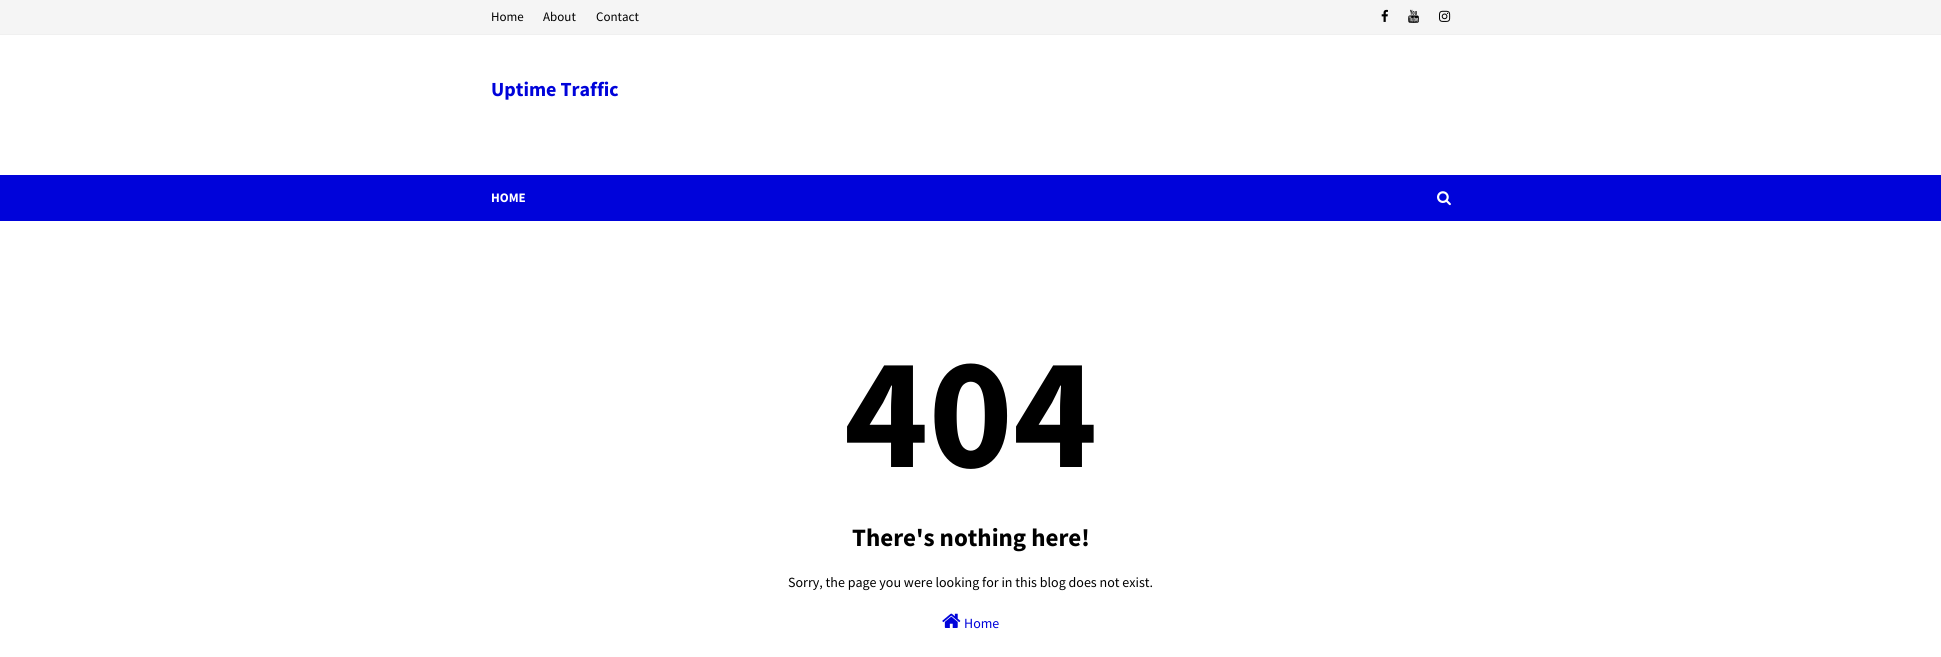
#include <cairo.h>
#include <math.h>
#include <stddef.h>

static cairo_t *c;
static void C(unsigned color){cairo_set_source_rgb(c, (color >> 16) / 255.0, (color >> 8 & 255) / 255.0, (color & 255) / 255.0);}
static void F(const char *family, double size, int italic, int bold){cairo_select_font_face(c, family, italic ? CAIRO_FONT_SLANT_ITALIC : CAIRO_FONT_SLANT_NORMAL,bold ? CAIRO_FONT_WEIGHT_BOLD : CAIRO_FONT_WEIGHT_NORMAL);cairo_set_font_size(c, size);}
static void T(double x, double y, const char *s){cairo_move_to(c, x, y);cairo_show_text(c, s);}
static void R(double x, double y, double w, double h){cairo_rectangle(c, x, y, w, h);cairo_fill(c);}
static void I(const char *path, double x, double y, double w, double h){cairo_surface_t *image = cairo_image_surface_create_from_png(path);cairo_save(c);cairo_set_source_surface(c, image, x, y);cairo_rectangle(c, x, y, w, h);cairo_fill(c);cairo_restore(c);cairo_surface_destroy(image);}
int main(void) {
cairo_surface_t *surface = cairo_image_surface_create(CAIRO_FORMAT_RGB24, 1941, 657);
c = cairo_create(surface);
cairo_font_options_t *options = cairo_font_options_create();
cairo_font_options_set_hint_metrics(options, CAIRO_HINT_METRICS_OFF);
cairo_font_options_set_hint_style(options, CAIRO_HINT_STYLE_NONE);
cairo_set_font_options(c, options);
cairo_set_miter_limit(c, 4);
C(0xffffff);
cairo_paint(c);
C(0xf5f5f5);
R(0,0,1941,34);
C(0xf0f0f0);
R(0,34,1941,1);
F("Source Sans Pro",13,0,0);
C(0x000000);
T(491,21,"Home");
T(543,21,"About");
T(596,21,"Contact");
I("1.png",1381,9,7,13);
I("2.png",1408,9,11,14);
I("3.png",1439,10,12,12);
F("Source Sans Pro",20,0,1);
C(0x0003da);
T(491,96,"Uptime Traffic");
R(0,175,1941,46);
F("Source Sans Pro",13,0,1);
C(0xffffff);
T(491,202,"HOME");
I("4.png",1437,191,14,15);
F("Source Sans Pro",160,0,1);
C(0x000000);
T(844,467,"404");
F("Source Sans Pro",25,0,1);
T(852,546,"There's nothing here!");
F("Source Sans Pro",14,0,0);
T(788,587,"Sorry, the page you were looking for in this blog does not exist.");
I("5.png",942,613,19,15);
C(0x0003da);
T(964,628,"Home");
cairo_surface_write_to_png(surface, "o.png");
cairo_font_options_destroy(options);
cairo_destroy(c);
cairo_surface_destroy(surface);
return 0;
}
